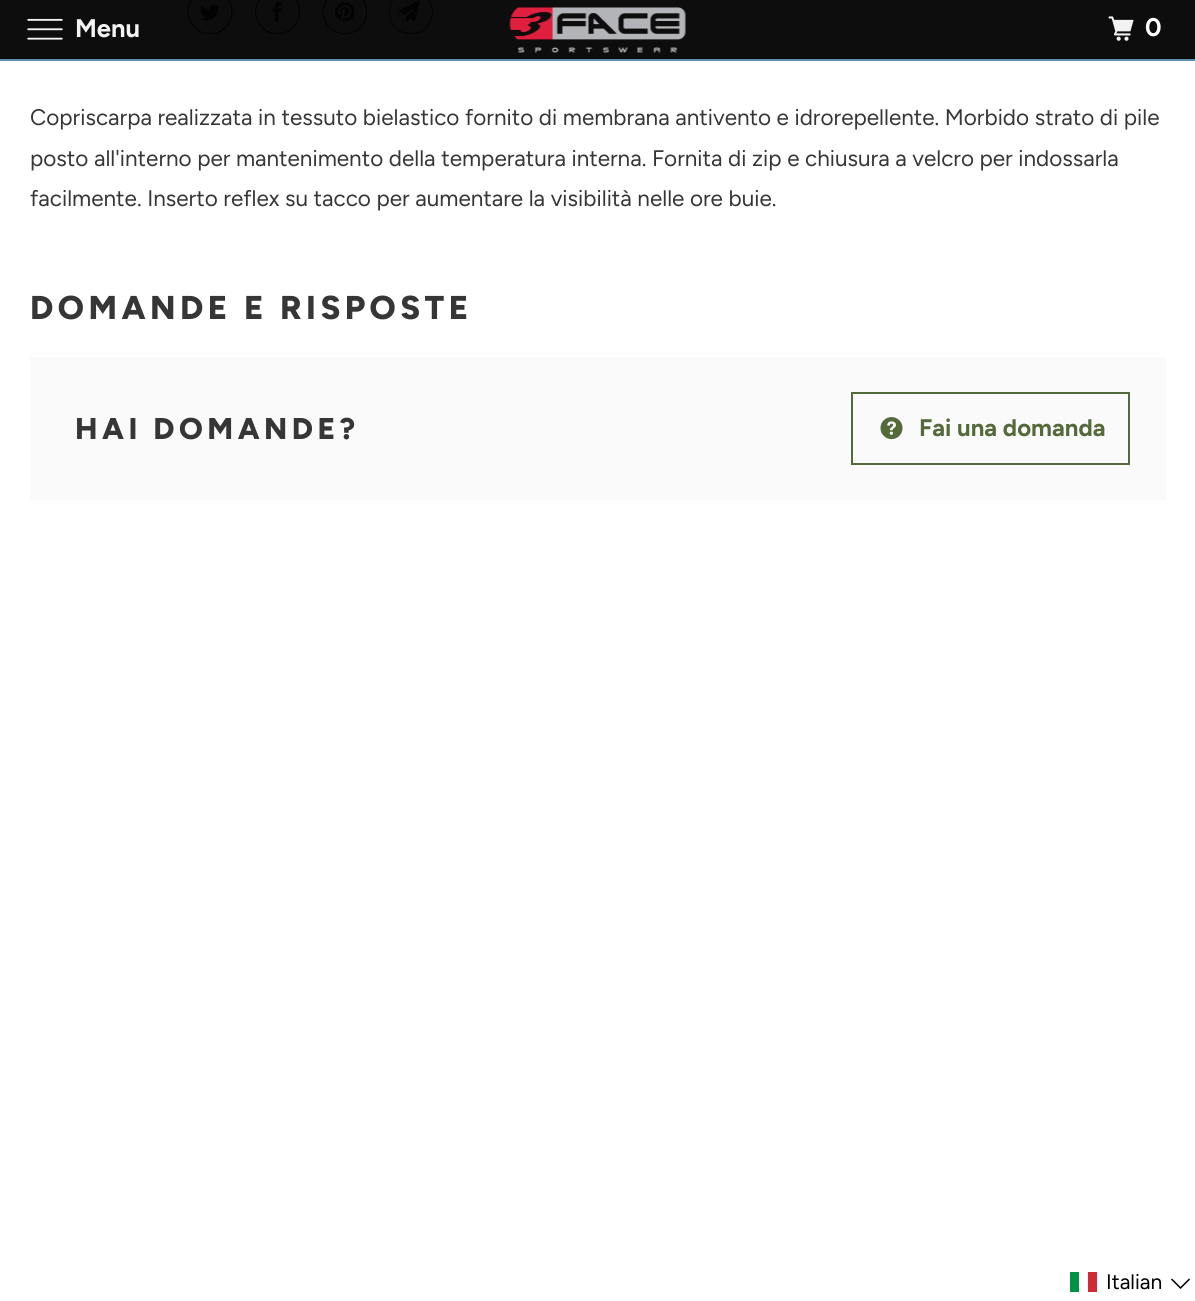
#include <cairo.h>
#include <math.h>
#include <stddef.h>

static cairo_t *c;
static void C(unsigned color){cairo_set_source_rgb(c, (color >> 16) / 255.0, (color >> 8 & 255) / 255.0, (color & 255) / 255.0);}
static void F(const char *family, double size, int italic, int bold){cairo_select_font_face(c, family, italic ? CAIRO_FONT_SLANT_ITALIC : CAIRO_FONT_SLANT_NORMAL,bold ? CAIRO_FONT_WEIGHT_BOLD : CAIRO_FONT_WEIGHT_NORMAL);cairo_set_font_size(c, size);}
static void T(double x, double y, const char *s){cairo_move_to(c, x, y);cairo_show_text(c, s);}
static void L(double x, double y, const char *s, double letter, double word){cairo_move_to(c, x, y);while (*s) {char ch[5] = {0};int n = 0;do ch[n++] = *s++; while ((*s & 0xC0) == 0x80);cairo_show_text(c, ch);cairo_rel_move_to(c, letter + word * (*ch == ' '), 0);}}
static void R(double x, double y, double w, double h){cairo_rectangle(c, x, y, w, h);cairo_fill(c);}
static void I(const char *path, double x, double y, double w, double h){cairo_surface_t *image = cairo_image_surface_create_from_png(path);cairo_save(c);cairo_set_source_surface(c, image, x, y);cairo_rectangle(c, x, y, w, h);cairo_fill(c);cairo_restore(c);cairo_surface_destroy(image);}
int main(void) {
cairo_surface_t *surface = cairo_image_surface_create(CAIRO_FORMAT_RGB24, 1195, 1301);
c = cairo_create(surface);
cairo_font_options_t *options = cairo_font_options_create();
cairo_font_options_set_hint_metrics(options, CAIRO_HINT_METRICS_OFF);
cairo_font_options_set_hint_style(options, CAIRO_HINT_STYLE_NONE);
cairo_set_font_options(c, options);
cairo_set_miter_limit(c, 4);
C(0xffffff);
cairo_paint(c);
C(0x608eae);
R(0,59,1195,2);
C(0x0d0d0d);
R(0,0,1195,59);
I("1.png",27,18,36,22);
F("Figtree",25.5,0,1);
C(0xf3f3f3);
T(75,37,"Menu");
I("2.png",509,7,177,46);
I("3.png",1108,16,26,25);
C(0xffffff);
T(1145,36,"0");
I("4.png",187,0,46,35);
I("5.png",255,0,45,35);
I("6.png",322,0,45,35);
C(0x030303);
cairo_new_path(c);
cairo_move_to(c,415,22);
cairo_line_to(c,410,19);
cairo_line_to(c,406,22);
cairo_line_to(c,406,17);
cairo_line_to(c,415,7);
cairo_line_to(c,405,15);
cairo_line_to(c,398,11);
cairo_line_to(c,420,0);
cairo_close_path(c);
cairo_move_to(c,411,-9);
cairo_curve_to(c,383,-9,383,33,411,33);
cairo_curve_to(c,439,33,439,-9,411,-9);
cairo_close_path(c);
cairo_move_to(c,411,34);
cairo_curve_to(c,382,34,382,-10,411,-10);
cairo_curve_to(c,440,-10,440,34,411,34);
cairo_close_path(c);
cairo_fill(c);
F("Figtree",22.5,0,0);
C(0x363636);
T(30,125,"Copriscarpa realizzata in tessuto bielastico fornito di membrana antivento e idrorepellente. Morbido strato di pile");
T(30,166,"posto all'interno per mantenimento della temperatura interna. Fornita di zip e chiusura a velcro per indossarla");
T(30,206,"facilmente. Inserto reflex su tacco per aumentare la visibilità nelle ore buie.");
F("Figtree ExtraBold",33,0,0);
L(30,319,"DOMANDE E RISPOSTE",4.5,0);
C(0xfafafa);
R(30,357,1136,143);
F("Figtree ExtraBold",30,0,0);
C(0x363636);
L(75,439,"HAI DOMANDE?",4.5,0);
cairo_rectangle(c,852,393,277,71);
C(0x546a3a);
cairo_stroke(c);
I("7.png",880,417,23,23);
F("Figtree",24,0,1);
T(919,436,"Fai una domanda");
C(0x009246);
R(1070,1272,9,20);
C(0xce2b37);
R(1088,1272,9,20);
F("Figtree",21,0,0);
C(0x000000);
T(1106,1289,"Italian");
cairo_new_path(c);
cairo_move_to(c,1171.5,1279);
cairo_line_to(c,1180.5,1288);
cairo_line_to(c,1189.5,1279);
cairo_set_line_width(c,1.5);
cairo_stroke(c);
cairo_surface_write_to_png(surface, "o.png");
cairo_font_options_destroy(options);
cairo_destroy(c);
cairo_surface_destroy(surface);
return 0;
}
